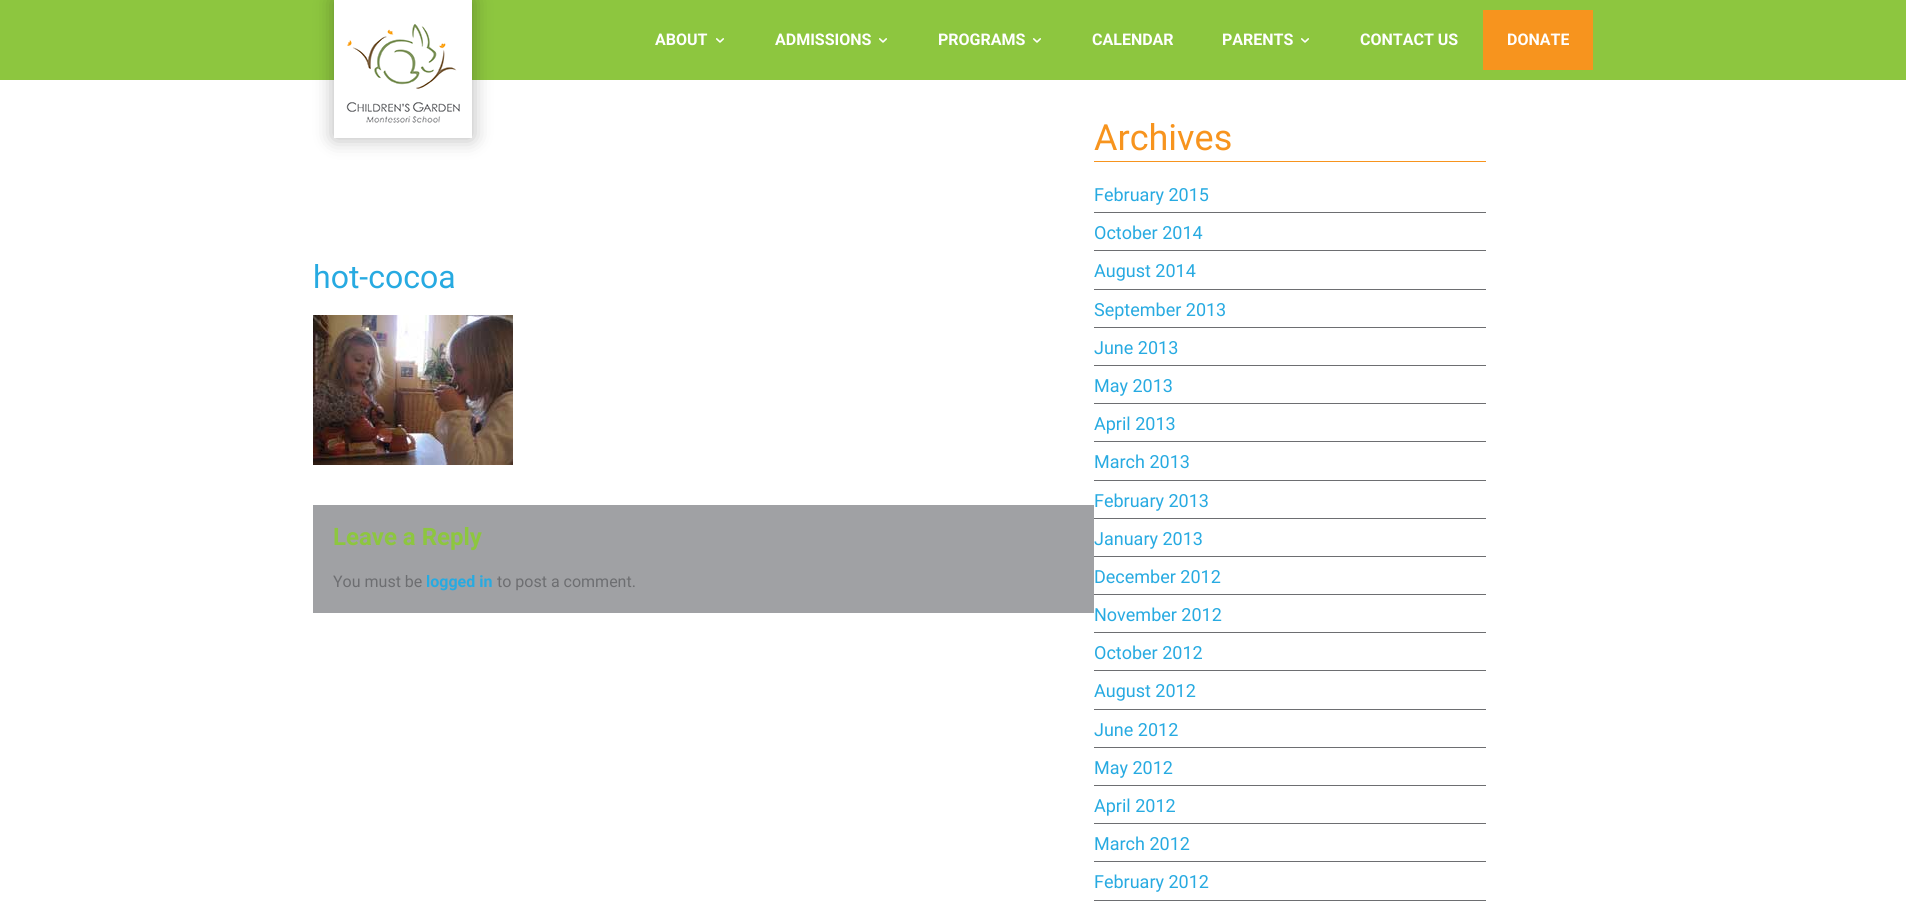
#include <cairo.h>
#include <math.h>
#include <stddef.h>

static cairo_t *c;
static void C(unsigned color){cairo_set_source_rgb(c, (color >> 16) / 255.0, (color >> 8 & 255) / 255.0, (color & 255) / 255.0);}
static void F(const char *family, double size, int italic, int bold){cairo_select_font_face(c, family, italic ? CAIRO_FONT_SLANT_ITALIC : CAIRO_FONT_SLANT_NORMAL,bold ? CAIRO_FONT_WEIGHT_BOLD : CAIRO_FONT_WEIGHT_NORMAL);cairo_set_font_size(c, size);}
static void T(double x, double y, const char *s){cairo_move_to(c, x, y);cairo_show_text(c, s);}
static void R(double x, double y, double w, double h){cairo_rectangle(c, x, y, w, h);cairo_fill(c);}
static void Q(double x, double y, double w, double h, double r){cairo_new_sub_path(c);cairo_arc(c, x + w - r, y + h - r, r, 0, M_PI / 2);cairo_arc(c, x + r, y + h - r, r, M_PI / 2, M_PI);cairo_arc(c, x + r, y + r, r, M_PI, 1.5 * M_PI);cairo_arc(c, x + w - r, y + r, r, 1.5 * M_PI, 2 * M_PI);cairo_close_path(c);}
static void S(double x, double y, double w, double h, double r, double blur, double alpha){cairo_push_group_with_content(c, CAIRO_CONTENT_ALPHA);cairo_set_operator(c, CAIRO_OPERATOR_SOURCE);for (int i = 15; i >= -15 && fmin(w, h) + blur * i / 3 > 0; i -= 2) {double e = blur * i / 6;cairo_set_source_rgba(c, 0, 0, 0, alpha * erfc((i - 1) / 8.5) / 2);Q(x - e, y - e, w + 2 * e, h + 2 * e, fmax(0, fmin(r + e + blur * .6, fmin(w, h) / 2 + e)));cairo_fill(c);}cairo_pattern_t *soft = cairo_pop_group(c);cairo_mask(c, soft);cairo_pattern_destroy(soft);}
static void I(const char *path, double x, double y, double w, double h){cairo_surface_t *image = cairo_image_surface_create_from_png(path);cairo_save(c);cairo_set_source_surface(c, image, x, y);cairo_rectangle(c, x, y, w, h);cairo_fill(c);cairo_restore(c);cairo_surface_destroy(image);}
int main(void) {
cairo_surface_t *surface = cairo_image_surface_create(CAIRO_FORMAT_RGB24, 1906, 901);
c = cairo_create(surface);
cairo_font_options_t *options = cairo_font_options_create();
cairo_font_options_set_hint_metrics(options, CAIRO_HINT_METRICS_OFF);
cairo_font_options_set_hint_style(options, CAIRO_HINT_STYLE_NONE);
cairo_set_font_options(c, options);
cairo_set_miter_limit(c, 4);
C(0xffffff);
cairo_paint(c);
C(0x8dc63f);
R(0,0,1906,80);
C(0x000000);
S(334,0,138,138,0,10,.3);
C(0xffffff);
R(334,0,138,138);
I("1.png",346,24,114,99);
F("Roboto",16,0,1);
T(655,45,"ABOUT");
I("2.png",716,38,8,5);
T(775,45,"ADMISSIONS");
I("2.png",879,38,8,5);
T(938,45,"PROGRAMS");
I("2.png",1033,38,8,5);
T(1092,45,"CALENDAR");
T(1222,45,"PARENTS");
I("2.png",1301,38,8,5);
T(1360,45,"CONTACT US");
C(0xf7941e);
R(1483,10,110,60);
C(0xffffff);
T(1507,45,"DONATE");
F("Roboto",32,0,0);
C(0x27aae1);
T(313,288,"hot-cocoa");
I("3.png",313,315,200,150);
C(0xa0a1a4);
R(313,505,781,108);
F("Roboto",24,0,1);
C(0x8dc63f);
T(333,545,"Leave a Reply");
F("Roboto",16,0,0);
C(0x6d6e71);
T(333,587,"You must be");
F("Roboto",16,0,1);
C(0x27aae1);
T(426,587,"logged in");
F("Roboto",16,0,0);
C(0x6d6e71);
T(497,587,"to post a comment.");
C(0xf7941e);
R(1094,161,392,1);
F("Roboto",36,0,0);
T(1094,150,"Archives");
C(0x6d6e71);
R(1094,212,392,1);
F("Roboto",18,0,0);
C(0x27aae1);
T(1094,201,"February 2015");
C(0x6d6e71);
R(1094,250,392,1);
C(0x27aae1);
T(1094,239,"October 2014");
C(0x6d6e71);
R(1094,289,392,1);
C(0x27aae1);
T(1094,277,"August 2014");
C(0x6d6e71);
R(1094,327,392,1);
C(0x27aae1);
T(1094,316,"September 2013");
C(0x6d6e71);
R(1094,365,392,1);
C(0x27aae1);
T(1094,354,"June 2013");
C(0x6d6e71);
R(1094,403,392,1);
C(0x27aae1);
T(1094,392,"May 2013");
C(0x6d6e71);
R(1094,441,392,1);
C(0x27aae1);
T(1094,430,"April 2013");
C(0x6d6e71);
R(1094,480,392,1);
C(0x27aae1);
T(1094,468,"March 2013");
C(0x6d6e71);
R(1094,518,392,1);
C(0x27aae1);
T(1094,507,"February 2013");
C(0x6d6e71);
R(1094,556,392,1);
C(0x27aae1);
T(1094,545,"January 2013");
C(0x6d6e71);
R(1094,594,392,1);
C(0x27aae1);
T(1094,583,"December 2012");
C(0x6d6e71);
R(1094,632,392,1);
C(0x27aae1);
T(1094,621,"November 2012");
C(0x6d6e71);
R(1094,670,392,1);
C(0x27aae1);
T(1094,659,"October 2012");
C(0x6d6e71);
R(1094,709,392,1);
C(0x27aae1);
T(1094,697,"August 2012");
C(0x6d6e71);
R(1094,747,392,1);
C(0x27aae1);
T(1094,736,"June 2012");
C(0x6d6e71);
R(1094,785,392,1);
C(0x27aae1);
T(1094,774,"May 2012");
C(0x6d6e71);
R(1094,823,392,1);
C(0x27aae1);
T(1094,812,"April 2012");
C(0x6d6e71);
R(1094,861,392,1);
C(0x27aae1);
T(1094,850,"March 2012");
C(0x6d6e71);
R(1094,900,392,1);
C(0x27aae1);
T(1094,888,"February 2012");
cairo_surface_write_to_png(surface, "o.png");
cairo_font_options_destroy(options);
cairo_destroy(c);
cairo_surface_destroy(surface);
return 0;
}
